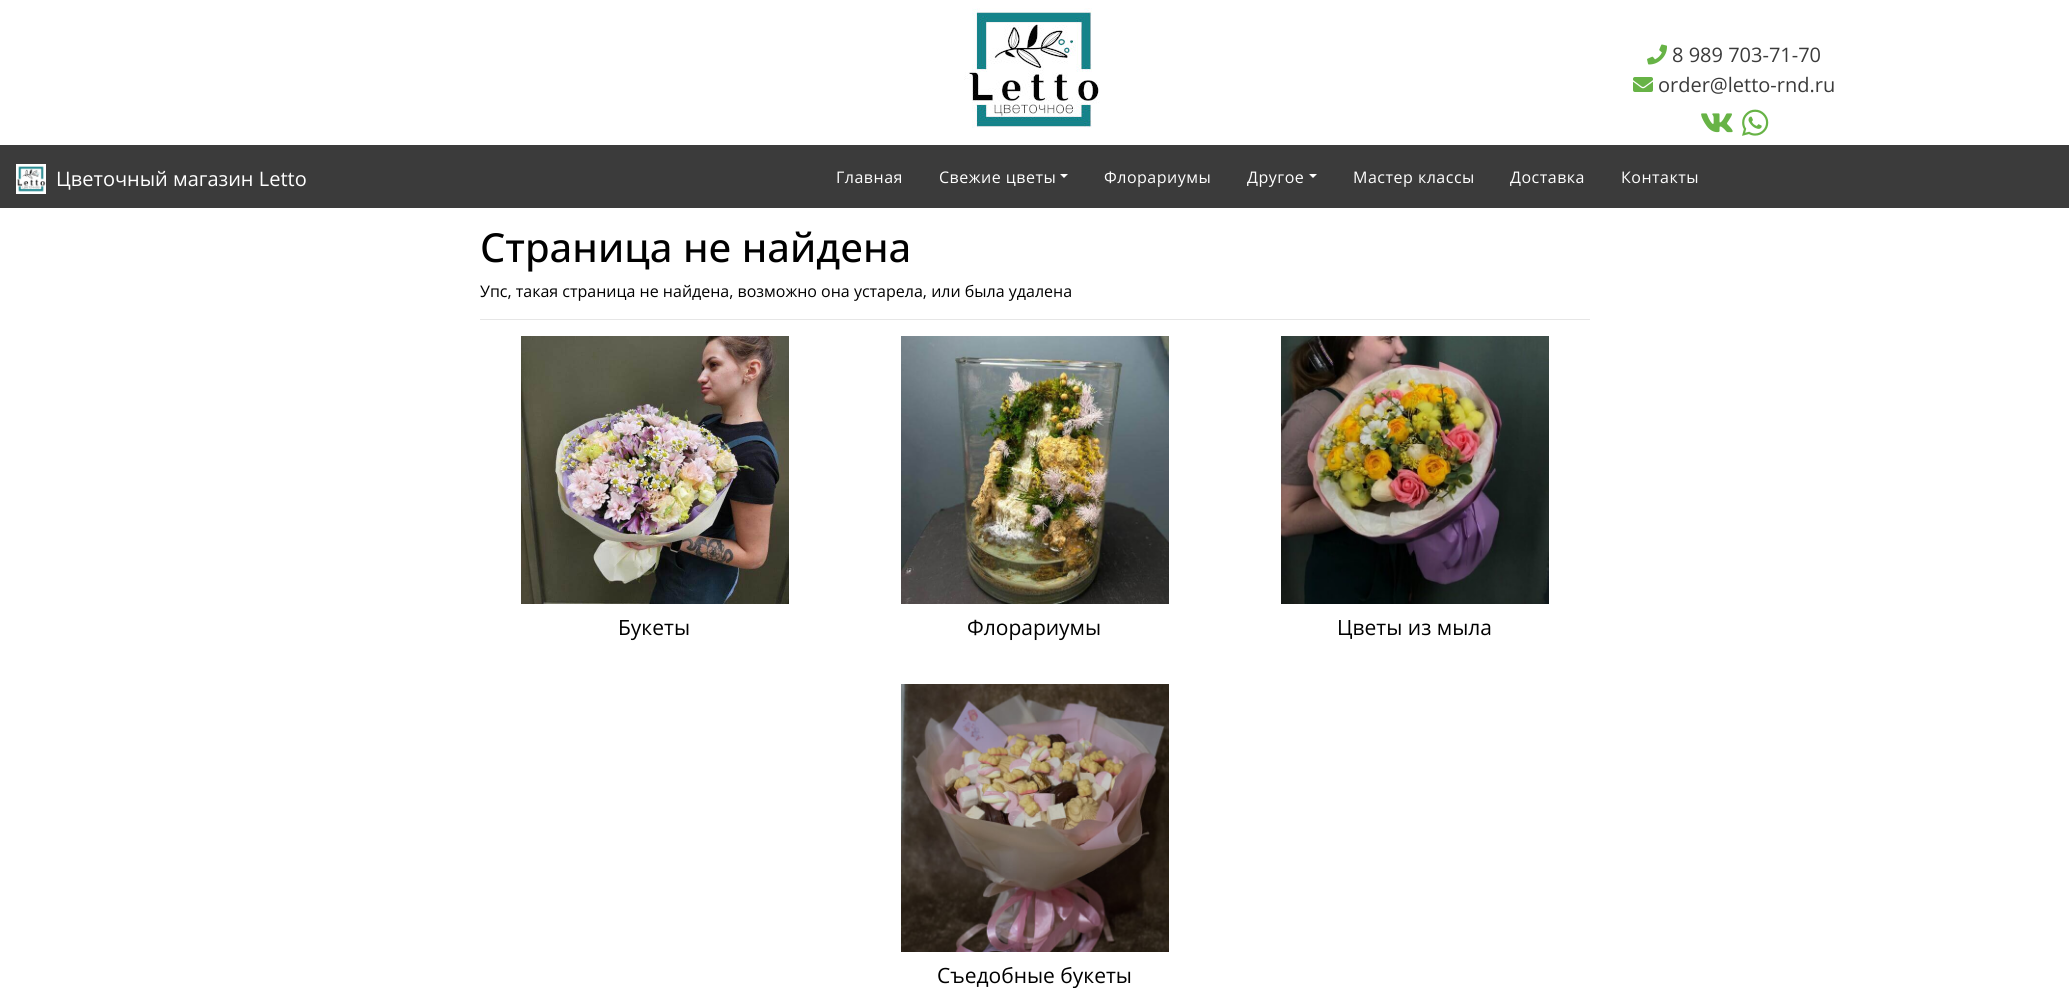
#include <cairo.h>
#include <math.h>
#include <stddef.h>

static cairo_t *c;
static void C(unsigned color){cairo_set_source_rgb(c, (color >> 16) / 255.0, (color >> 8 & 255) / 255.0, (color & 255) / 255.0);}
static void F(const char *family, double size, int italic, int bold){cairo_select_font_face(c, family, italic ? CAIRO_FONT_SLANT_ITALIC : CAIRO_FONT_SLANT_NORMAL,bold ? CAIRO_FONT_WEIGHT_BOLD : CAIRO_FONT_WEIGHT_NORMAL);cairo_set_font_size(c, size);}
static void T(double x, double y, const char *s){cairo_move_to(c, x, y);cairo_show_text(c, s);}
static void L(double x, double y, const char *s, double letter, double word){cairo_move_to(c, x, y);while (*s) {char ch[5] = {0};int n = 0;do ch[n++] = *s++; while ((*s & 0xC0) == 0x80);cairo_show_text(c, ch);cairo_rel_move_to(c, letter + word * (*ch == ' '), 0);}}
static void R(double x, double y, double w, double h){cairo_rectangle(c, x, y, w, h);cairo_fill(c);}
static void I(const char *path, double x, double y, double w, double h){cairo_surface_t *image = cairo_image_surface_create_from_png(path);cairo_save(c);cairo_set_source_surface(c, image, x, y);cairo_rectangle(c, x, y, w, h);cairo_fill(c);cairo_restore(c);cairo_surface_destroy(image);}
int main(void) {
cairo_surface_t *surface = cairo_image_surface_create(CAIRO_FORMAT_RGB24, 2069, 988);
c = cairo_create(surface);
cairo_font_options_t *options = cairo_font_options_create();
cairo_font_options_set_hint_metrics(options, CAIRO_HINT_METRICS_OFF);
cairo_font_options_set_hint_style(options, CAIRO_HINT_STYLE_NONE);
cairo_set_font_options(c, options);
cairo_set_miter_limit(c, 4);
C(0xffffff);
cairo_paint(c);
I("1.png",964,8,136,120);
I("2.png",1647,44,20,21);
F("Open Sans",20,0,0);
C(0x3b3b3b);
T(1672,62,"8 989 703-71-70");
I("3.png",1633,77,20,15);
T(1658,92,"order@letto-rnd.ru");
I("4.png",1701,113,32,20);
I("5.png",1742,109,27,27);
R(0,145,2069,63);
I("6.png",16,164,30,30);
C(0xffffff);
T(56,186,"Цветочный магазин Letto");
F("Open Sans",16,0,0);
L(836,183,"Главная",.5,0);
L(939,183,"Свежие цветы",.5,0);
cairo_new_path(c);
cairo_move_to(c,1060,174);
cairo_line_to(c,1068,174);
cairo_line_to(c,1064,178);
cairo_close_path(c);
cairo_fill(c);
L(1104,183,"Флорариумы",.5,0);
L(1247,183,"Другое",.5,0);
cairo_new_path(c);
cairo_move_to(c,1309,174);
cairo_line_to(c,1317,174);
cairo_line_to(c,1313,178);
cairo_close_path(c);
cairo_fill(c);
L(1353,183,"Мастер классы",.5,0);
L(1510,183,"Доставка",.5,0);
L(1621,183,"Контакты",.5,0);
F("Open Sans Medium",40,0,0);
C(0x000000);
T(480,262,"Страница не найдена");
F("Open Sans",16,0,0);
T(480,297,"Упс, такая страница не найдена, возможно она устарела, или была удалена");
C(0xe6e6e6);
R(480,319,1110,1);
I("7.png",521,336,268,268);
F("Open Sans",21,0,0);
C(0x000000);
T(618,635,"Букеты");
I("8.png",901,336,268,268);
T(967,635,"Флорариумы");
I("9.png",1281,336,268,268);
T(1337,635,"Цветы из мыла");
I("10.png",901,684,268,268);
T(937,983,"Съедобные букеты");
cairo_surface_write_to_png(surface, "o.png");
cairo_font_options_destroy(options);
cairo_destroy(c);
cairo_surface_destroy(surface);
return 0;
}
